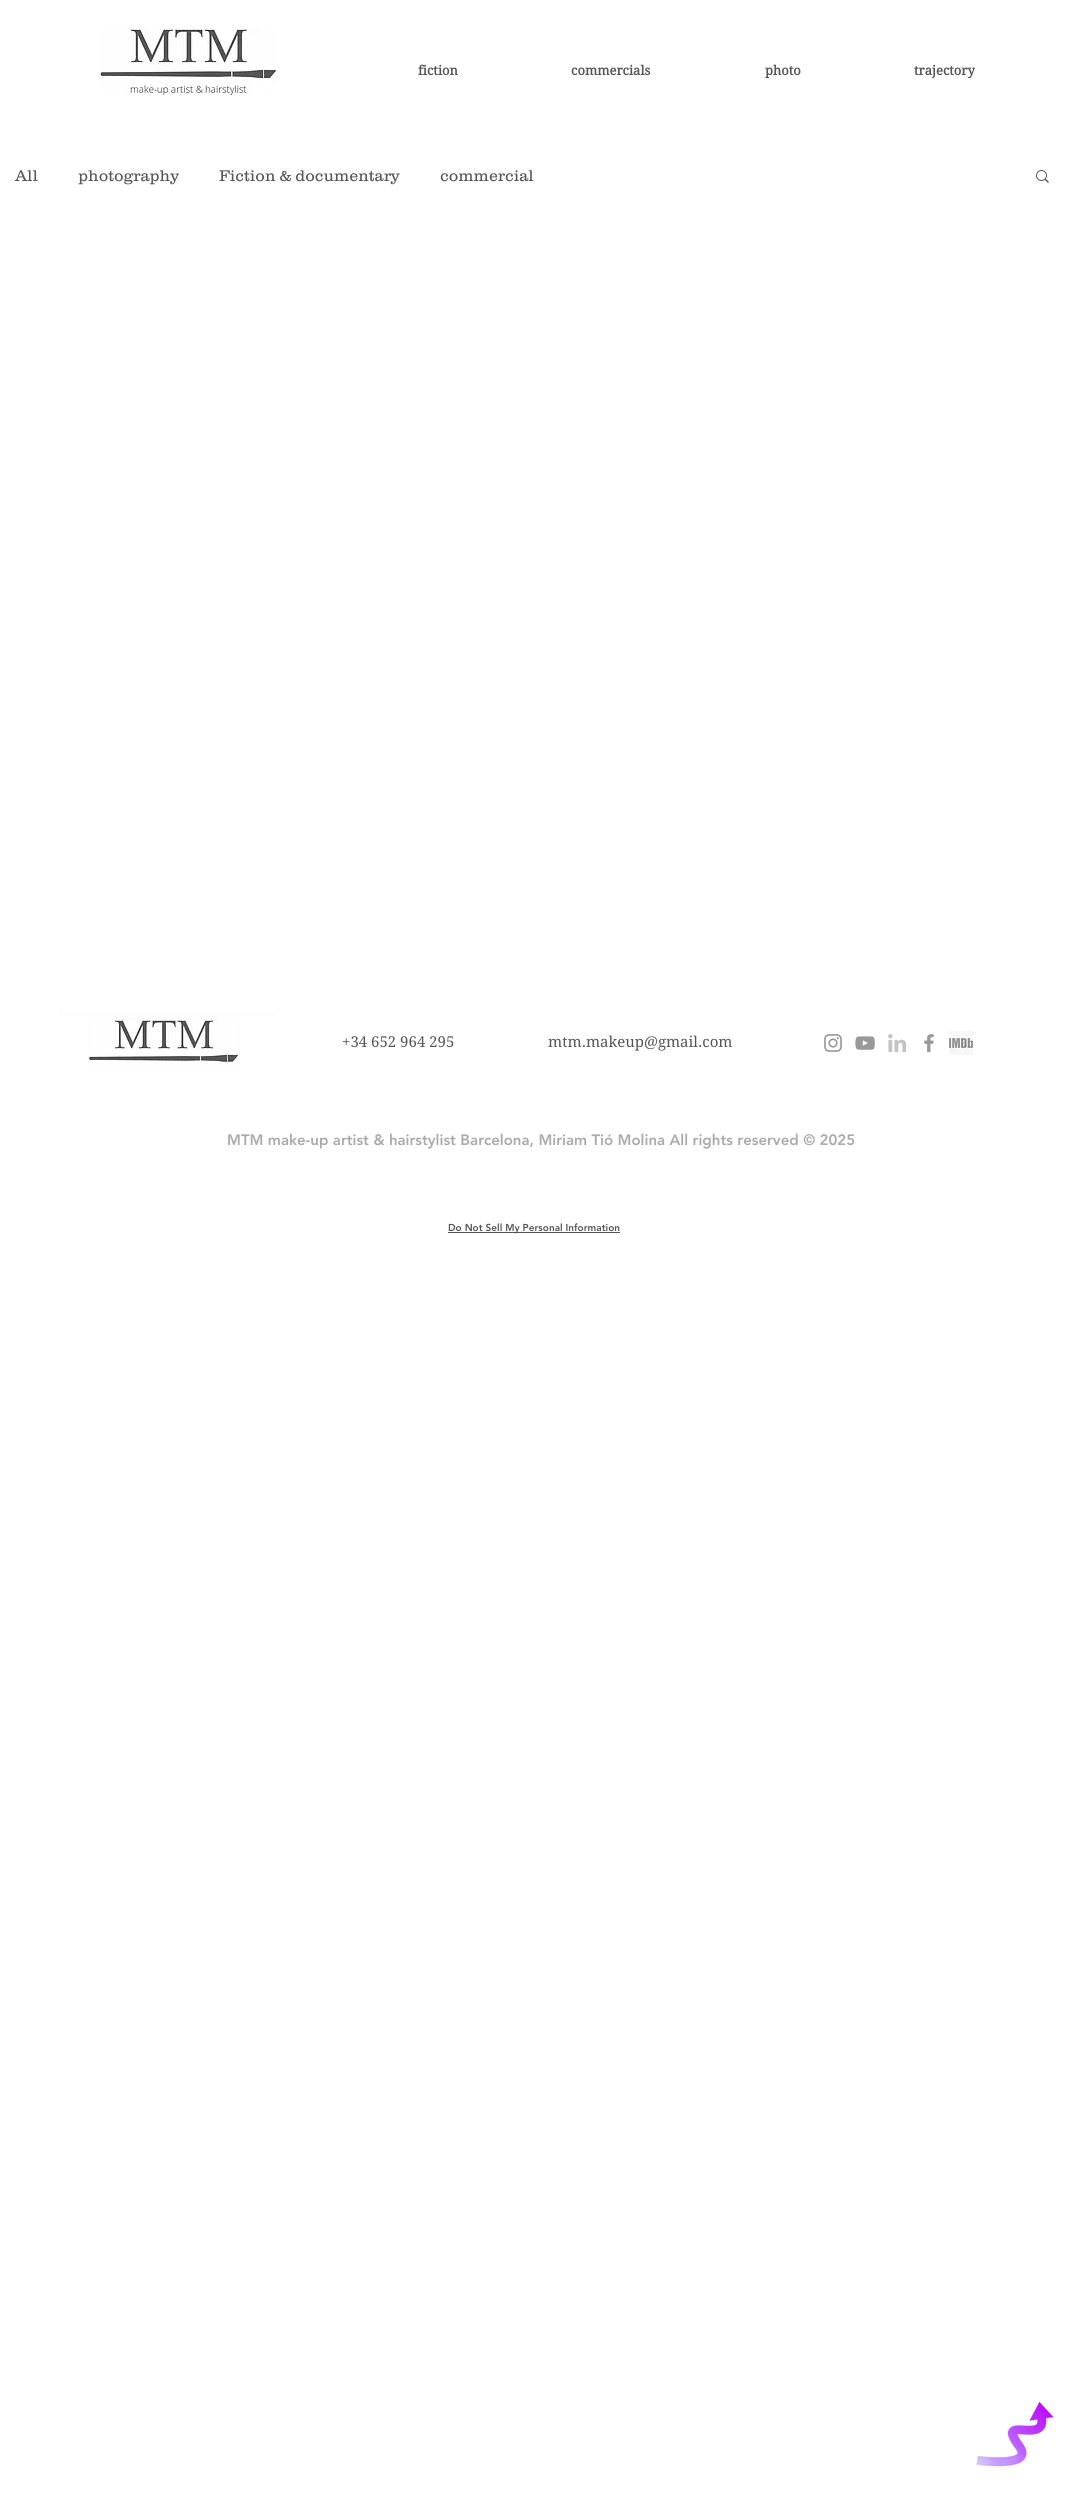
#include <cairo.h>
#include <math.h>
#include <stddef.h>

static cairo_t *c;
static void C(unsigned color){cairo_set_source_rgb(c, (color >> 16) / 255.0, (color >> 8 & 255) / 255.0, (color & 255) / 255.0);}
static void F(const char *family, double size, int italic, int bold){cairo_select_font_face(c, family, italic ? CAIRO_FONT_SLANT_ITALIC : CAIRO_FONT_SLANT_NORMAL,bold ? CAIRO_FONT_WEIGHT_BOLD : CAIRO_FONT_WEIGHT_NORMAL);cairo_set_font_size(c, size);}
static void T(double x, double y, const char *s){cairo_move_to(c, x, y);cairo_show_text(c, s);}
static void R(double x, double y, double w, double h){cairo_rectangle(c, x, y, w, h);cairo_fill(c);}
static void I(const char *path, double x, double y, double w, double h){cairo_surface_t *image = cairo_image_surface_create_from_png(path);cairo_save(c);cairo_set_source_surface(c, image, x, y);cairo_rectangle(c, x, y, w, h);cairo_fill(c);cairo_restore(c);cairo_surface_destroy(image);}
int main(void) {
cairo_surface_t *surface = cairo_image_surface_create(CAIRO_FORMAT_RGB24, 1083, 2502);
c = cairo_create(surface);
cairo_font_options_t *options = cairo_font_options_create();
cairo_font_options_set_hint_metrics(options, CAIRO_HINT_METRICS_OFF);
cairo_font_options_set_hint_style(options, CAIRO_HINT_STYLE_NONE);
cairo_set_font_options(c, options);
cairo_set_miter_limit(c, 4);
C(0xffffff);
cairo_paint(c);
I("1.png",99,27,179,68);
F("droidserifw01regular",13,0,1);
C(0x565656);
T(418,75,"fiction");
T(571,75,"commercials");
T(765,75,"photo");
T(914,75,"trajectory");
F("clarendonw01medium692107 Light",16,0,0);
T(15,181,"All");
T(78,181,"photography");
T(219,181,"Fiction & documentary");
T(440,181,"commercial");
I("2.png",1036,170,13,13);
C(0xfffcfd);
R(59,1011,216,5);
R(88,1017,152,48);
I("3.png",89,1018,150,44);
F("droidserifw01regular",15,0,0);
C(0x565656);
T(342,1047,"+34 652 964 295");
T(548,1047,"mtm.makeup@gmail.com");
I("4.png",824,1034,18,18);
I("5.png",855,1036,20,14);
I("6.png",888,1034,19,19);
I("7.png",924,1034,10,19);
I("8.png",949,1031,24,24);
F("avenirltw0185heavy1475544 Black",15,0,0);
C(0xababab);
T(227,1145,"MTM make-up artist & hairstylist Barcelona, Miriam Tió Molina All rights reserved © 2025");
C(0x565656);
R(448,1232,172,1);
F("avenirltw0185heavy1475544 Black",10,0,0);
T(448,1231,"Do Not Sell My Personal Information");
I("9.png",976,2402,78,65);
cairo_surface_write_to_png(surface, "o.png");
cairo_font_options_destroy(options);
cairo_destroy(c);
cairo_surface_destroy(surface);
return 0;
}
